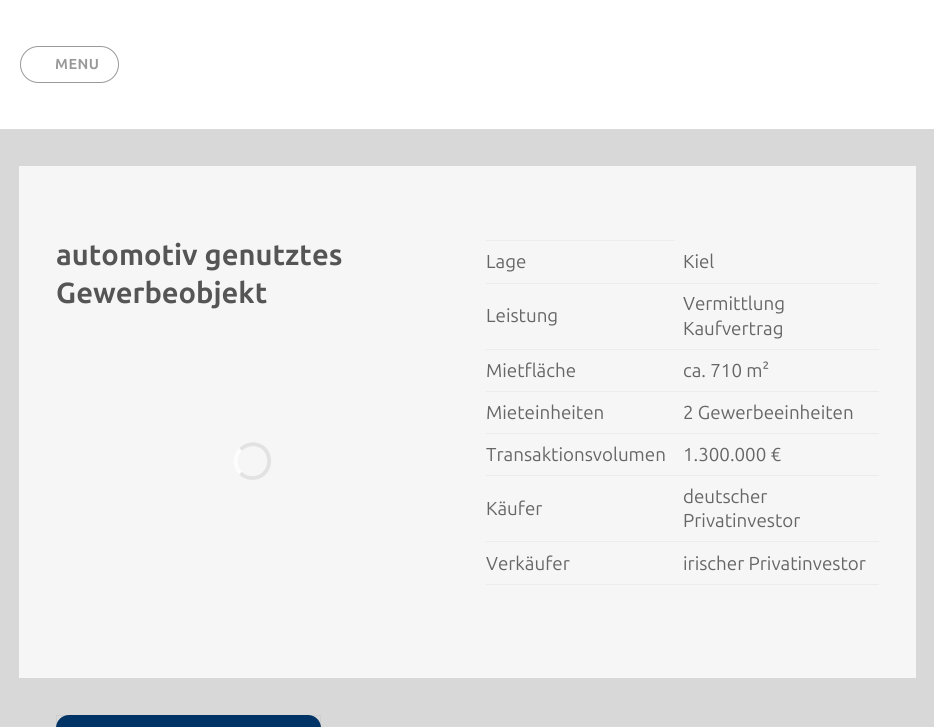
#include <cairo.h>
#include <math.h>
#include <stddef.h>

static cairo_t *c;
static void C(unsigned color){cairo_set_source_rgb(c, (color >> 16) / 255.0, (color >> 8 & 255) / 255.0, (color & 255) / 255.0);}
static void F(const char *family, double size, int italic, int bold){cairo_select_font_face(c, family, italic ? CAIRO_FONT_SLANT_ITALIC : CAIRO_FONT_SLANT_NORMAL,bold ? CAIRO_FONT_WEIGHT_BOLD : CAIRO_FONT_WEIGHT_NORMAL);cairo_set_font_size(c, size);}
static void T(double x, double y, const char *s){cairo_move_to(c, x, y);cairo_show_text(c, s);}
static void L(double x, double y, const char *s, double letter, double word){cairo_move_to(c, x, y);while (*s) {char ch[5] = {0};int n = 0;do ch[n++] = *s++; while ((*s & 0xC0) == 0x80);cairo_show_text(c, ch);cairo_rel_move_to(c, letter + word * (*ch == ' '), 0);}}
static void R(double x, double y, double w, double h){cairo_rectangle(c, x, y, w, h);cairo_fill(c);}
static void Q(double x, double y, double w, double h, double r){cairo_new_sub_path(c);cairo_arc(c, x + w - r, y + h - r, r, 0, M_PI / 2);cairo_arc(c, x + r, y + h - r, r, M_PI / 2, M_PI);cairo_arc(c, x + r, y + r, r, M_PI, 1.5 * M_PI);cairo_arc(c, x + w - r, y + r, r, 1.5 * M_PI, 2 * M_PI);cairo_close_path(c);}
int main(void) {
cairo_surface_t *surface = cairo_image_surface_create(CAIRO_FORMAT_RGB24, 934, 727);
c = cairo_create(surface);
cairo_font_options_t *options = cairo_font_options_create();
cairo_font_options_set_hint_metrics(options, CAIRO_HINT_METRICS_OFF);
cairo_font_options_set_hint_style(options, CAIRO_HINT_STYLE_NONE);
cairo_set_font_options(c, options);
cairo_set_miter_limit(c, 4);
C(0xd8d8d8);
cairo_paint(c);
C(0xffffff);
R(0,0,934,129);
Q(20.5,46.5,98,36,18);
C(0x999999);
cairo_set_line_width(c,1);
cairo_stroke(c);
F("Ubuntu",14.5,0,1);
L(55,69,"MENU",.5,0);
C(0xf6f6f6);
R(19,166,897,512);
F("Ubuntu",29.1,0,1);
C(0x555555);
T(56,265,"automotiv genutztes");
T(56,303,"Gewerbeobjekt");
cairo_new_path(c);
cairo_move_to(c,240.5,449.5);
cairo_curve_to(c,244.5,445.5,250.5,443.5,256,444.5);
cairo_curve_to(c,275.5,448.5,272.5,478,252.5,478);
cairo_curve_to(c,248,478,243.5,476.5,240.5,473);
C(0xe2e2e2);
cairo_set_line_width(c,3.8);
cairo_stroke(c);
cairo_new_path(c);
cairo_move_to(c,240.5,473);
cairo_curve_to(c,234,466.5,234,456,240.5,449.5);
C(0xfdfdfd);
cairo_stroke(c);
C(0xececec);
R(486,240,189,1);
R(486,283,393,1);
F("Ubuntu",18.75,0,0);
C(0x666666);
T(486,268,"Lage");
T(683,268,"Kiel");
C(0xececec);
R(486,349,393,1);
C(0x666666);
T(486,322,"Leistung");
T(683,310,"Vermittlung");
T(683,335,"Kaufvertrag");
C(0xececec);
R(486,391,393,1);
C(0x666666);
T(486,377,"Mietfläche");
T(683,377,"ca. 710 m²");
C(0xececec);
R(486,433,393,1);
C(0x666666);
T(486,419,"Mieteinheiten");
T(683,419,"2 Gewerbeeinheiten");
C(0xececec);
R(486,475,393,1);
C(0x666666);
T(486,461,"Transaktionsvolumen");
T(683,461,"1.300.000 €");
C(0xececec);
R(486,541,393,1);
C(0x666666);
T(486,515,"Käufer");
T(683,503,"deutscher");
T(683,527,"Privatinvestor");
C(0xececec);
R(486,584,393,1);
C(0x666666);
T(486,570,"Verkäufer");
T(683,570,"irischer Privatinvestor");
C(0x003366);
Q(56,715,265,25,13);
cairo_fill(c);
cairo_rectangle(c,56.5,715.5,264,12);
cairo_set_source_rgba(c,0,0,0,0.05);
cairo_set_line_width(c,1);
cairo_stroke(c);
cairo_surface_write_to_png(surface, "o.png");
cairo_font_options_destroy(options);
cairo_destroy(c);
cairo_surface_destroy(surface);
return 0;
}
